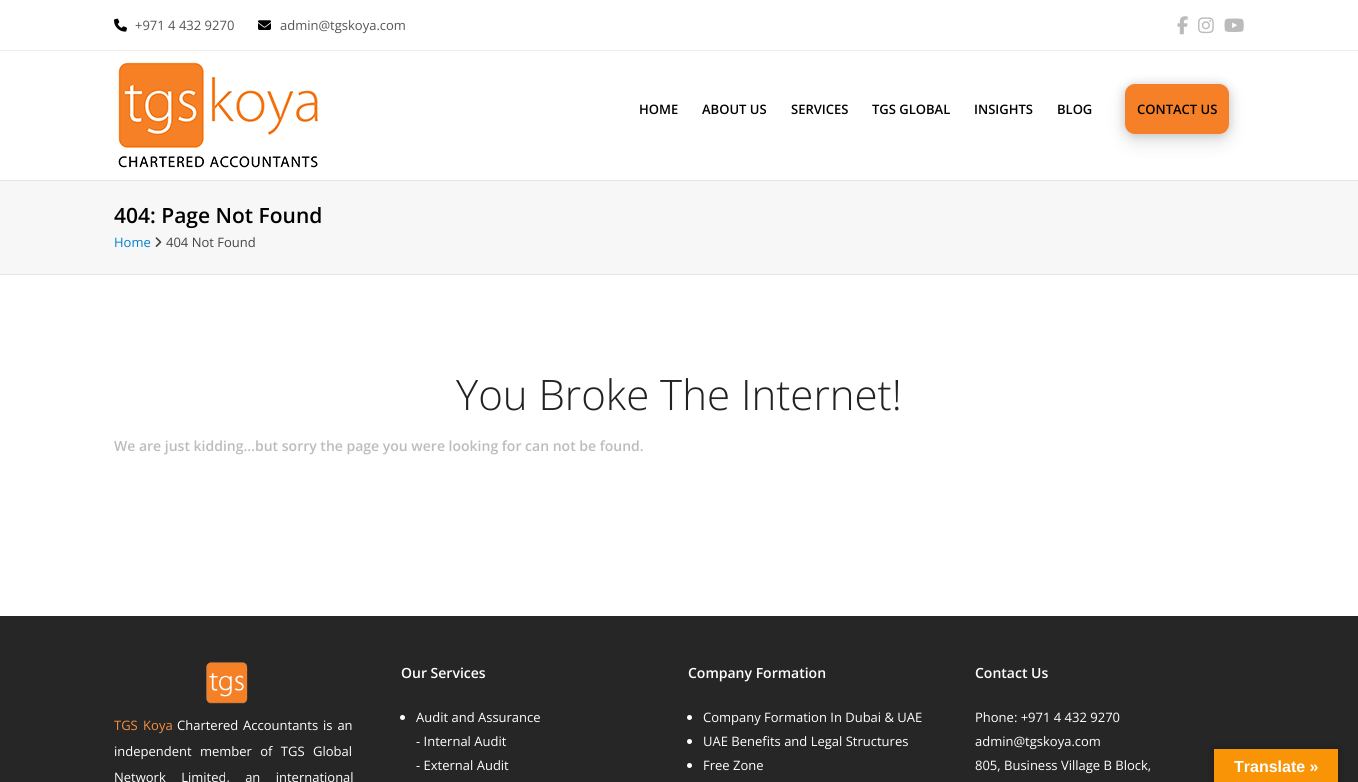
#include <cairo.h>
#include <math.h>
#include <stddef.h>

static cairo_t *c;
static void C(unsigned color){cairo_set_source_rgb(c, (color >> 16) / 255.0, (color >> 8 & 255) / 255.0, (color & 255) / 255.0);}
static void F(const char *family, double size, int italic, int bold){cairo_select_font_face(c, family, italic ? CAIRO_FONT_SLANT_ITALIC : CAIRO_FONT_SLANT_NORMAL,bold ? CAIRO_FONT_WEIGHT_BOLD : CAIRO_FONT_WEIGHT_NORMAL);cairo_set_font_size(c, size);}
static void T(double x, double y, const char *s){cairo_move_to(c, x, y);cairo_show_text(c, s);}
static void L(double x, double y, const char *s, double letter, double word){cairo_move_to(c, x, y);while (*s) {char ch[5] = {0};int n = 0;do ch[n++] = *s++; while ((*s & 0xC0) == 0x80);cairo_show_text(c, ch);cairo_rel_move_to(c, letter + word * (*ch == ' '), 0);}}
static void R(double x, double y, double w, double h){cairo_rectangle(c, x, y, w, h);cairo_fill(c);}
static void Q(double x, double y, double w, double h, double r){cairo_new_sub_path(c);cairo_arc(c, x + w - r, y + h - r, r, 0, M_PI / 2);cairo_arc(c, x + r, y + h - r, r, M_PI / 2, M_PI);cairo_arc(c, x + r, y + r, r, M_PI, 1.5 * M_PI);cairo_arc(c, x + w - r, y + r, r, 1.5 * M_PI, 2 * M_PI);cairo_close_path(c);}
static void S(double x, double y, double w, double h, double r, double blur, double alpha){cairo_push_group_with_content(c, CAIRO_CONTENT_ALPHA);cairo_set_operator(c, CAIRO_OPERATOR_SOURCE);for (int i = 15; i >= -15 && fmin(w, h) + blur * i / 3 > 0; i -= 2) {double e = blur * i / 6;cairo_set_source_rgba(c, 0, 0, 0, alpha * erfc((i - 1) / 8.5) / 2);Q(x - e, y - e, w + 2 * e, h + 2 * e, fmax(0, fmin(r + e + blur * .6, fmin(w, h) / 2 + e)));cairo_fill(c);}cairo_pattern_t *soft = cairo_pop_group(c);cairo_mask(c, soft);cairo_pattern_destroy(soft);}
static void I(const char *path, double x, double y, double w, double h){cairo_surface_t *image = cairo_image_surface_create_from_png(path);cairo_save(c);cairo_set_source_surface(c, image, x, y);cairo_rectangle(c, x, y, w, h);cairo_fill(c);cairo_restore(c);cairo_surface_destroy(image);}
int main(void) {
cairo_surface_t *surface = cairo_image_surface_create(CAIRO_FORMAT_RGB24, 1358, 782);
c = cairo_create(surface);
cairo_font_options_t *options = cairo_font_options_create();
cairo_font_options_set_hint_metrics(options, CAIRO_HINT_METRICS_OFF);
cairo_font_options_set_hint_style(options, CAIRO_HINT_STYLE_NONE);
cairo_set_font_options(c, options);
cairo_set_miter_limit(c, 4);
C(0xffffff);
cairo_paint(c);
C(0xeeeeee);
R(0,50,1358,1);
I("1.png",114,18,13,14);
F("Open Sans",13,0,0);
C(0x555555);
T(135,30,"+971 4 432 9270");
I("2.png",258,20,13,10);
T(280,30,"admin@tgskoya.com");
I("3.png",1177,16,11,19);
I("4.png",1198,17,16,17);
I("5.png",1224,18,20,14);
I("6.png",118,62,200,106);
F("Open Sans SemiBold",13,0,0);
C(0x000000);
T(639,114,"HOME");
T(702,114,"ABOUT US");
T(791,114,"SERVICES");
T(872,114,"TGS GLOBAL");
T(974,114,"INSIGHTS");
T(1057,114,"BLOG");
C(0x000000);
S(1125,85,104,50,10,5,.19);
S(1125,92,104,50,10,9.5,.1);
C(0xf68027);
Q(1125,84,104,50,10);
cairo_fill(c);
C(0x000000);
T(1137,114,"CONTACT US");
C(0xf7f7f7);
R(0,181,1358,93);
C(0xe4e4e4);
R(0,180,1358,1);
R(0,274,1358,1);
F("Open Sans SemiBold",21,0,0);
C(0x000000);
T(114,223,"404: Page Not Found");
F("Open Sans",13,0,0);
C(0x0081cc);
T(114,247,"Home");
I("7.png",155,237,7,10);
C(0x444444);
T(166,247,"404 Not Found");
F("Open Sans Light",42,0,0);
C(0x222222);
T(456,410,"You Broke The Internet!");
F("Open Sans SemiBold",14,0,0);
C(0xbcbcbc);
T(114,451,"We are just kidding...but sorry the page you were looking for can not be found.");
C(0x262626);
R(0,616,1358,166);
I("8.png",206,662,42,42);
F("Open Sans",13,0,0);
C(0xf48f40);
L(114,730,"TGS Koya",0,2);
C(0xffffff);
L(177,730,"Chartered Accountants is an",0,1.5);
L(114,756,"independent member of TGS Global",0,5);
L(114,782,"Network Limited, an international",0,12);
F("Open Sans SemiBold",14,0,0);
T(401,678,"Our Services");
cairo_new_path(c);
cairo_arc(c,402.5,717.5,2.5,0,2 * M_PI);
cairo_fill(c);
F("Open Sans",13,0,0);
T(416,722,"Audit and Assurance");
T(416,746,"- Internal Audit");
T(416,770,"- External Audit");
F("Open Sans SemiBold",14,0,0);
T(688,678,"Company Formation");
cairo_new_path(c);
cairo_arc(c,689.5,717.5,2.5,0,2 * M_PI);
cairo_fill(c);
F("Open Sans",13,0,0);
T(703,722,"Company Formation In Dubai & UAE");
cairo_new_path(c);
cairo_arc(c,689.5,741.5,2.5,0,2 * M_PI);
cairo_fill(c);
T(703,746,"UAE Benefits and Legal Structures");
cairo_new_path(c);
cairo_arc(c,689.5,765.5,2.5,0,2 * M_PI);
cairo_fill(c);
T(703,770,"Free Zone");
F("Open Sans SemiBold",14,0,0);
T(975,678,"Contact Us");
F("Open Sans",13,0,0);
T(975,722,"Phone: +971 4 432 9270");
T(975,746,"admin@tgskoya.com");
T(975,770,"805, Business Village B Block,");
C(0x000000);
S(1214,749,124,33,0,4.5,.3);
C(0xf89406);
R(1214,749,124,33);
F("Liberation Sans",16,0,1);
C(0xffffff);
T(1234,772,"Translate »");
cairo_surface_write_to_png(surface, "o.png");
cairo_font_options_destroy(options);
cairo_destroy(c);
cairo_surface_destroy(surface);
return 0;
}
